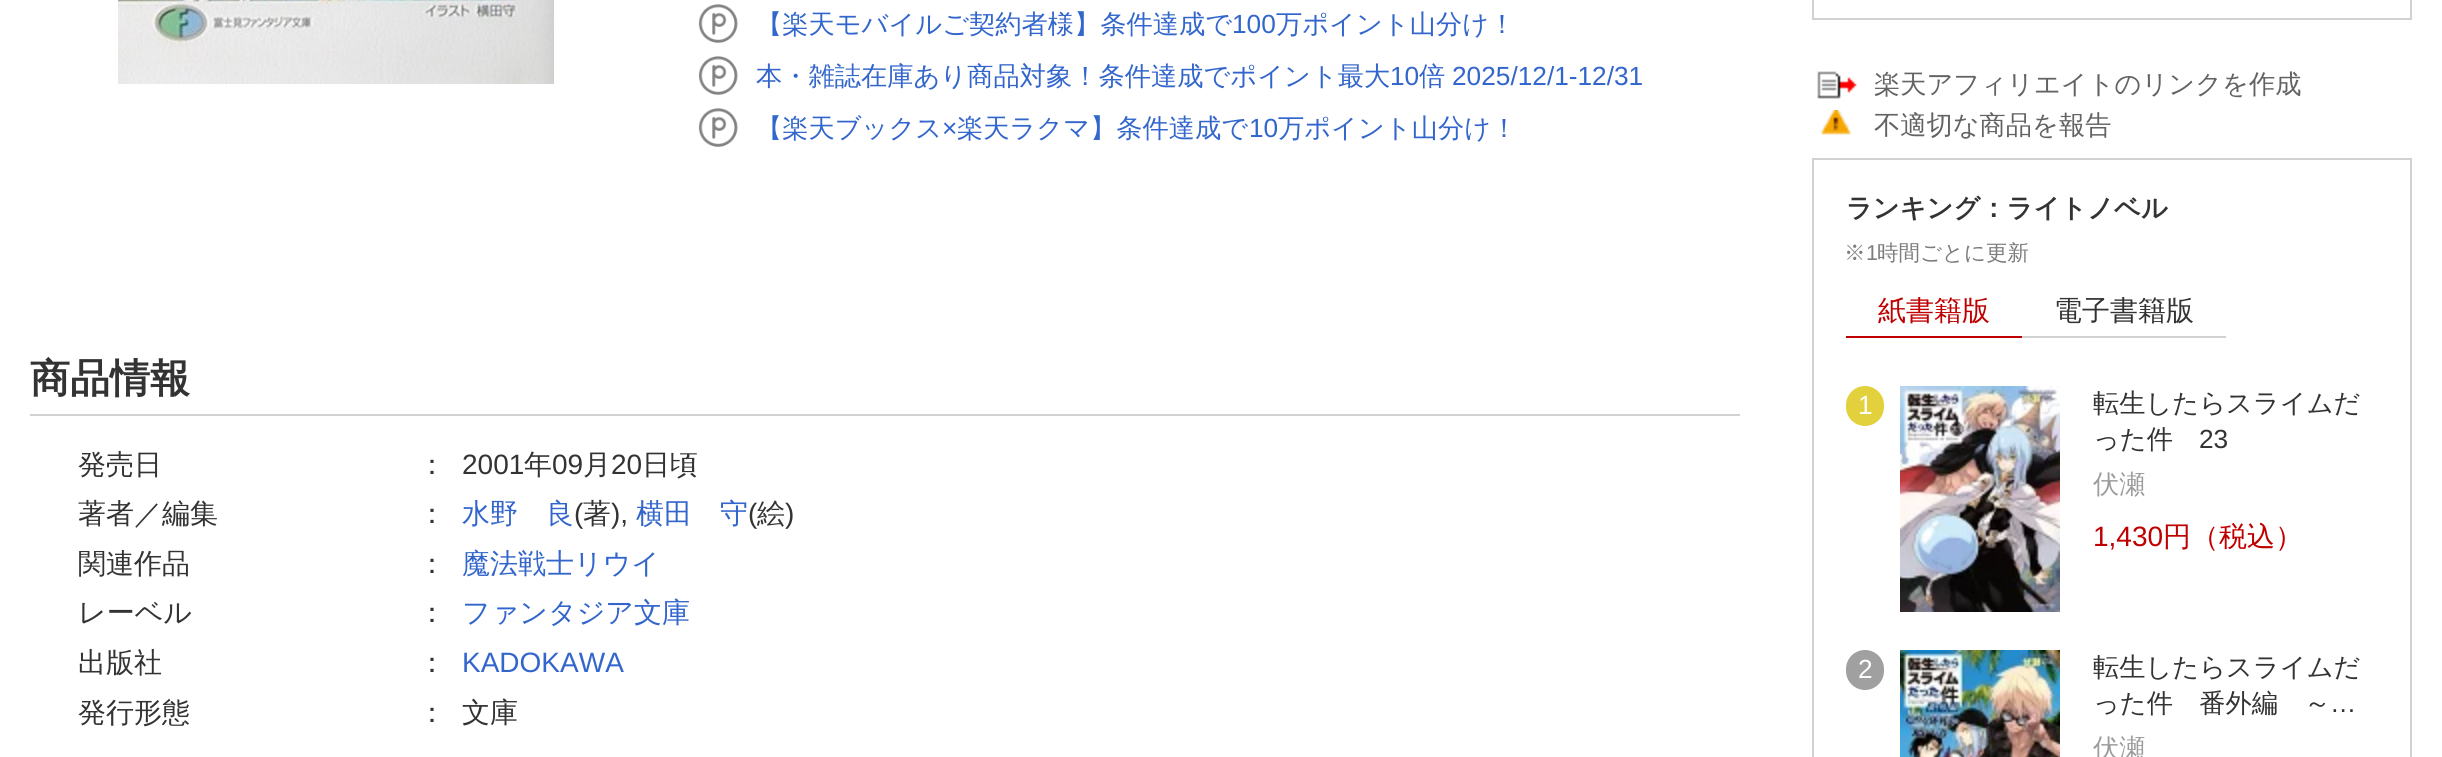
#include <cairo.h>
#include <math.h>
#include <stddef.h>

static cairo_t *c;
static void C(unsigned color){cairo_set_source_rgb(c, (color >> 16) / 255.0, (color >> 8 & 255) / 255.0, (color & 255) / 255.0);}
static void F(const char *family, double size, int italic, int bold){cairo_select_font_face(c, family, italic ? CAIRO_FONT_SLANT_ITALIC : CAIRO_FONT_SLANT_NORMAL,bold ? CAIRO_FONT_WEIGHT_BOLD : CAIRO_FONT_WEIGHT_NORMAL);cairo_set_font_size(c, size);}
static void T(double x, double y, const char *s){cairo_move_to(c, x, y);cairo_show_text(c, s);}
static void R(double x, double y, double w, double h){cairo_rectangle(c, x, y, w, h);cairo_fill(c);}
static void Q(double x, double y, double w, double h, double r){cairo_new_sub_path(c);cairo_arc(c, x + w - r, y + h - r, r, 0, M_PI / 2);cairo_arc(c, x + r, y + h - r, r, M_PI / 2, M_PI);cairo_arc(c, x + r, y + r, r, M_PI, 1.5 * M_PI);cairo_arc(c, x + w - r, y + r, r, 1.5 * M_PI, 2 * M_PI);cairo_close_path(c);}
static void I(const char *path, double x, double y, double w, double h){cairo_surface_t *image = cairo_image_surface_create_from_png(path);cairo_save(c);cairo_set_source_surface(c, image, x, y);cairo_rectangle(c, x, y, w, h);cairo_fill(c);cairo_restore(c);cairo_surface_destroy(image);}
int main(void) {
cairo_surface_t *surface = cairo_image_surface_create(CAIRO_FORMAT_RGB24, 2442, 757);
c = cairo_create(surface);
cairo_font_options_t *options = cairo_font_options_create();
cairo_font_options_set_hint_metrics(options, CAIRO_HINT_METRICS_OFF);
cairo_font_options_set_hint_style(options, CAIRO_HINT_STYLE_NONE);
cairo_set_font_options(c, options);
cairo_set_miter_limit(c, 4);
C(0xffffff);
cairo_paint(c);
I("1.png",118,0,436,84);
I("2.png",698,4,40,39);
F("WenQuanYi Zen Hei Medium",26.25,0,0);
C(0x3366cc);
T(756,33,"【楽天モバイルご契約者様】条件達成で");
F("Liberation Sans",26.25,0,0);
T(1232,33,"100");
F("WenQuanYi Zen Hei Medium",26.25,0,0);
T(1276,33,"万ポイント山分け！");
I("2.png",698,56,40,39);
T(756,85,"本・雑誌在庫あり商品対象！条件達成でポイント最大");
F("Liberation Sans",26.25,0,0);
T(1390,85,"10");
F("WenQuanYi Zen Hei Medium",26.25,0,0);
T(1419,85,"倍");
F("Liberation Sans",26.25,0,0);
T(1452,85,"2025/12/1-12/31");
I("3.png",698,108,40,39);
F("WenQuanYi Zen Hei Medium",26.25,0,0);
T(756,137,"【楽天ブックス");
F("Liberation Sans",26.25,0,0);
T(942,137,"×");
F("WenQuanYi Zen Hei Medium",26.25,0,0);
T(957,137,"楽天ラクマ】条件達成で");
F("Liberation Sans",26.25,0,0);
T(1249,137,"10");
F("WenQuanYi Zen Hei Medium",26.25,0,0);
T(1278,137,"万ポイント山分け！");
C(0xd1d1d1);
R(30,414,1710,2);
F("WenQuanYi Zen Hei",40,0,1);
C(0x333333);
T(30,392,"商品情報");
F("WenQuanYi Zen Hei Medium",28,0,0);
T(78,474,"発売日");
T(418,474,"：");
F("Liberation Sans",28,0,0);
T(462,474,"2001");
F("WenQuanYi Zen Hei Medium",28,0,0);
T(524,474,"年");
F("Liberation Sans",28,0,0);
T(552,474,"09");
F("WenQuanYi Zen Hei Medium",28,0,0);
T(583,474,"月");
F("Liberation Sans",28,0,0);
T(611,474,"20");
F("WenQuanYi Zen Hei Medium",28,0,0);
T(642,474,"日頃");
T(78,523,"著者／編集");
T(418,523,"：");
C(0x3366cc);
T(462,523,"水野　良");
F("Liberation Sans",28,0,0);
C(0x333333);
T(574,523,"(");
F("WenQuanYi Zen Hei Medium",28,0,0);
T(583,523,"著");
F("Liberation Sans",28,0,0);
T(611,523,"),");
F("WenQuanYi Zen Hei Medium",28,0,0);
C(0x3366cc);
T(636,523,"横田　守");
F("Liberation Sans",28,0,0);
C(0x333333);
T(748,523,"(");
F("WenQuanYi Zen Hei Medium",28,0,0);
T(757,523,"絵");
F("Liberation Sans",28,0,0);
T(785,523,")");
F("WenQuanYi Zen Hei Medium",28,0,0);
T(78,573,"関連作品");
T(418,573,"：");
C(0x3366cc);
T(462,573,"魔法戦士リウイ");
C(0x333333);
T(78,622,"レーベル");
T(418,622,"：");
C(0x3366cc);
T(462,622,"ファンタジア文庫");
C(0x333333);
T(78,672,"出版社");
T(418,672,"：");
F("Liberation Sans",28,0,0);
C(0x3366cc);
T(462,672,"KADOKAWA");
F("WenQuanYi Zen Hei Medium",28,0,0);
C(0x333333);
T(78,722,"発行形態");
T(418,722,"：");
T(462,722,"文庫");
cairo_rectangle(c,1813,-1,598,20);
C(0xd1d1d1);
cairo_stroke(c);
I("4.png",1817,71,40,28);
F("WenQuanYi Zen Hei Medium",26.25,0,0);
C(0x636363);
T(1874,93,"楽天アフィリエイトのリンクを作成");
I("5.png",1820,110,31,25);
T(1874,134,"不適切な商品を報告");
cairo_rectangle(c,1813,159,598,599);
C(0xd1d1d1);
cairo_stroke(c);
F("WenQuanYi Zen Hei",26.25,0,1);
C(0x333333);
T(1846,217,"ランキング：ライトノベル");
F("WenQuanYi Zen Hei Medium",21.5,0,0);
C(0x7d7d7d);
T(1844,260,"※");
F("Liberation Sans",21.5,0,0);
T(1866,260,"1");
F("WenQuanYi Zen Hei Medium",21.5,0,0);
T(1877,260,"時間ごとに更新");
C(0xbf0000);
R(1846,336,176,2);
F("WenQuanYi Zen Hei Medium",28,0,0);
T(1878,320,"紙書籍版");
C(0xd1d1d1);
R(2022,336,204,2);
C(0x333333);
T(2054,320,"電子書籍版");
C(0xe2d13d);
Q(1846,386,38,40,19);
cairo_fill(c);
F("Liberation Sans",26.25,0,0);
C(0xffffff);
T(1858,414,"1");
I("6.png",1900,386,160,226);
F("WenQuanYi Zen Hei Medium",26.25,0,0);
C(0x333333);
T(2093,412,"転生したらスライムだ");
T(2093,448,"った件");
F("Liberation Sans",26.25,0,0);
T(2199,448,"23");
F("WenQuanYi Zen Hei Medium",26.25,0,0);
C(0x9c9c9c);
T(2093,493,"伏瀬");
F("Liberation Sans",28,0,0);
C(0xbf0000);
T(2093,546,"1,430");
F("WenQuanYi Zen Hei Medium",28,0,0);
T(2163,546,"円（税込）");
C(0xa0a0a0);
Q(1846,650,38,40,19);
cairo_fill(c);
F("Liberation Sans",26.25,0,0);
C(0xffffff);
T(1858,678,"2");
I("7.png",1900,650,160,107);
F("WenQuanYi Zen Hei Medium",26.25,0,0);
C(0x333333);
T(2093,676,"転生したらスライムだ");
T(2093,712,"った件　番外編　～");
F("Liberation Sans",26.25,0,0);
T(2330,712,"…");
F("WenQuanYi Zen Hei Medium",26.25,0,0);
C(0x9c9c9c);
T(2093,757,"伏瀬");
cairo_surface_write_to_png(surface, "o.png");
cairo_font_options_destroy(options);
cairo_destroy(c);
cairo_surface_destroy(surface);
return 0;
}
